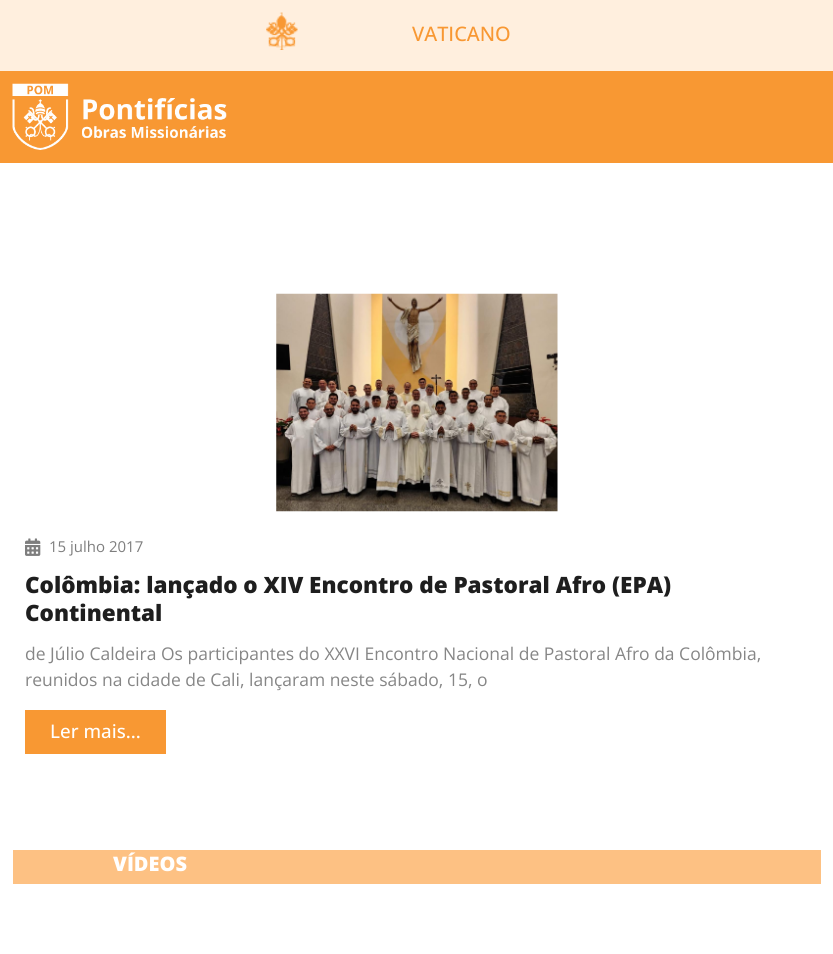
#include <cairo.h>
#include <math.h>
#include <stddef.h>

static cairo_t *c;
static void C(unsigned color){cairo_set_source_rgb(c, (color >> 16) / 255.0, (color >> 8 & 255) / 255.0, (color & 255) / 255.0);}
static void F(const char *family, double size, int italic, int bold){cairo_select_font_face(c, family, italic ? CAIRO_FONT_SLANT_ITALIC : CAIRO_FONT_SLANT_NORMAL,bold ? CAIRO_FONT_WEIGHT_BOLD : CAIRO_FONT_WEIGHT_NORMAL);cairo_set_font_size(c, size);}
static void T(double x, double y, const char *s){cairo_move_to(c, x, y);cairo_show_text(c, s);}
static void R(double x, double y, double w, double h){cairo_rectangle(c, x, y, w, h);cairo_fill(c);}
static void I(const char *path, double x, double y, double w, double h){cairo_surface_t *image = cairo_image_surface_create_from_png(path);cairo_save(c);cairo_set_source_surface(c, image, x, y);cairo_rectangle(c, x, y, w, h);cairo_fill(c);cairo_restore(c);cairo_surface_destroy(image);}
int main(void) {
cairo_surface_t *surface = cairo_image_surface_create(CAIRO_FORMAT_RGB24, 833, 954);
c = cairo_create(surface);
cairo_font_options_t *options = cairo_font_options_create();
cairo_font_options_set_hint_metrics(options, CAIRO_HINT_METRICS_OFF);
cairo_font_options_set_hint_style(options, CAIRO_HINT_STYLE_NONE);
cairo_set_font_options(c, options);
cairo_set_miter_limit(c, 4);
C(0xffffff);
cairo_paint(c);
C(0xffefde);
R(0,0,833,71);
I("1.png",266,12,32,38);
F("Open Sans Medium",20,0,0);
C(0xf89833);
T(412,41,"VATICANO");
R(0,71,833,92);
I("2.png",12,83,215,67);
I("3.png",276,293,282,219);
I("4.png",25,538,16,18);
F("Open Sans",15,0,0);
C(0x7e7e7e);
T(49,552,"15 julho 2017");
F("Open Sans ExtraBold",22.5,0,0);
C(0x1e1e1e);
T(25,593,"Colômbia: lançado o XIV Encontro de Pastoral Afro (EPA)");
T(25,621,"Continental");
F("Open Sans",17.5,0,0);
C(0x868686);
T(25,660,"de Júlio Caldeira Os participantes do XXVI Encontro Nacional de Pastoral Afro da Colômbia,");
T(25,686,"reunidos na cidade de Cali, lançaram neste sábado, 15, o");
C(0xf89833);
R(25,710,141,44);
F("Open Sans Medium",18.75,0,0);
C(0xffffff);
T(50,738,"Ler mais...");
C(0xfdc183);
R(13,850,808,34);
F("Open Sans ExtraBold",20,0,0);
C(0xffffff);
T(113,871,"VÍDEOS");
cairo_surface_write_to_png(surface, "o.png");
cairo_font_options_destroy(options);
cairo_destroy(c);
cairo_surface_destroy(surface);
return 0;
}
